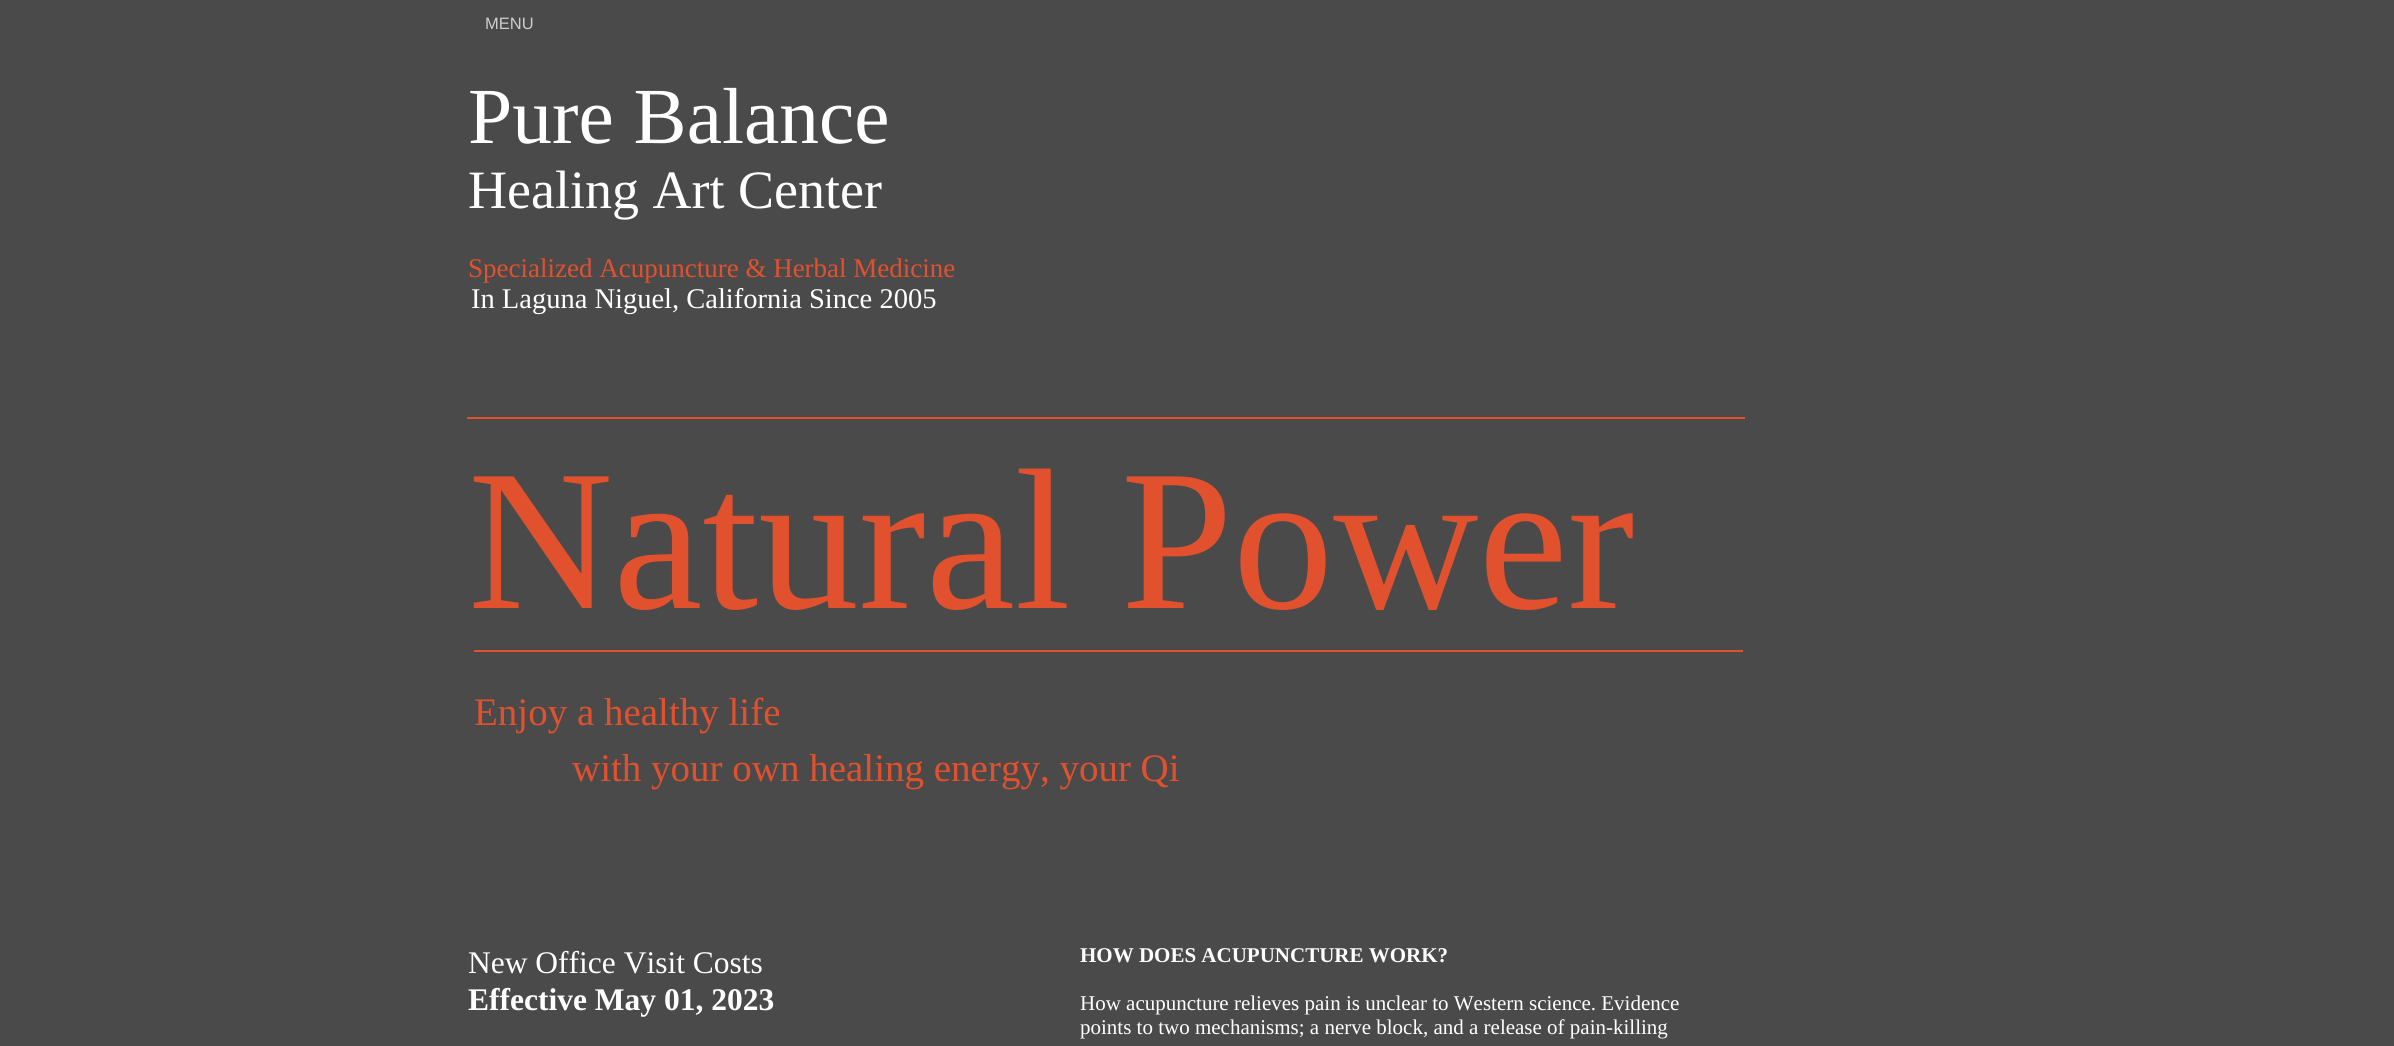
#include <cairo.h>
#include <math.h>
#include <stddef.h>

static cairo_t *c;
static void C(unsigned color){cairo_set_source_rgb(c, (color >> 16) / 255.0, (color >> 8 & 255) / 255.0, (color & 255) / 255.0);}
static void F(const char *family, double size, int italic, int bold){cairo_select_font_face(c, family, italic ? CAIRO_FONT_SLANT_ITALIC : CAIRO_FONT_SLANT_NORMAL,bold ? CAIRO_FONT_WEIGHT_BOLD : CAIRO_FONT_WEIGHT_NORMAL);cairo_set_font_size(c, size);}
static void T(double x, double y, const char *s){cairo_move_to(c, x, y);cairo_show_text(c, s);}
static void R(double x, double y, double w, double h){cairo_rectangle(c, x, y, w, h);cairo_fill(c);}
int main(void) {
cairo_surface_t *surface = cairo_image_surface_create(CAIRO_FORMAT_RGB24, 2394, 1046);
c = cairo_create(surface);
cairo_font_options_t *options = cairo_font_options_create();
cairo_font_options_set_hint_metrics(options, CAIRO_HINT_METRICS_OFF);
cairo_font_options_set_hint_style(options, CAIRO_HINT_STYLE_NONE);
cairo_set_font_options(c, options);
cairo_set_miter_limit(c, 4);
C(0x4a4a4a);
cairo_paint(c);
F("Liberation Sans",16.5,0,0);
C(0xcdcdcd);
T(485,29,"MENU");
F("Liberation Serif",79.5,0,0);
C(0xffffff);
T(468,143,"Pure Balance");
F("Liberation Serif",54,0,0);
T(468,208,"Healing Art Center");
F("Liberation Serif",27,0,0);
C(0xe2512d);
T(468,277,"Specialized Acupuncture & Herbal Medicine");
F("Liberation Serif",28.5,0,0);
C(0xffffff);
T(471,308,"In Laguna Niguel, California Since 2005");
C(0xe2512d);
R(467,417,1278,2);
F("Liberation Serif",201,0,0);
T(468,608,"Natural Power");
R(474,650,1269,2);
F("Liberation Serif",39,0,0);
T(474,725,"Enjoy a healthy life");
T(572,781,"with your own healing energy, your Qi");
F("Liberation Serif",31.5,0,0);
C(0xffffff);
T(468,973,"New Office Visit Costs");
F("Liberation Serif",31.5,0,1);
T(468,1010,"Effective May 01, 2023");
F("Liberation Serif",21,0,1);
T(1080,962,"HOW DOES ACUPUNCTURE WORK?");
F("Liberation Serif",21,0,0);
T(1080,1010,"How acupuncture relieves pain is unclear to Western science. Evidence");
T(1080,1034,"points to two mechanisms; a nerve block, and a release of pain-killing");
cairo_surface_write_to_png(surface, "o.png");
cairo_font_options_destroy(options);
cairo_destroy(c);
cairo_surface_destroy(surface);
return 0;
}
